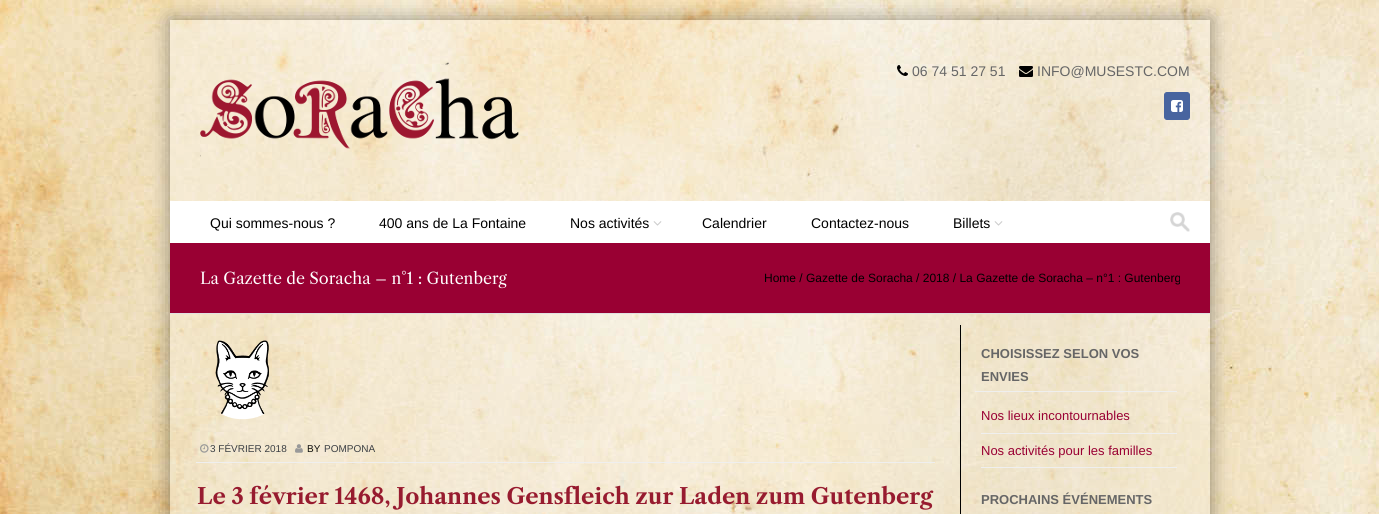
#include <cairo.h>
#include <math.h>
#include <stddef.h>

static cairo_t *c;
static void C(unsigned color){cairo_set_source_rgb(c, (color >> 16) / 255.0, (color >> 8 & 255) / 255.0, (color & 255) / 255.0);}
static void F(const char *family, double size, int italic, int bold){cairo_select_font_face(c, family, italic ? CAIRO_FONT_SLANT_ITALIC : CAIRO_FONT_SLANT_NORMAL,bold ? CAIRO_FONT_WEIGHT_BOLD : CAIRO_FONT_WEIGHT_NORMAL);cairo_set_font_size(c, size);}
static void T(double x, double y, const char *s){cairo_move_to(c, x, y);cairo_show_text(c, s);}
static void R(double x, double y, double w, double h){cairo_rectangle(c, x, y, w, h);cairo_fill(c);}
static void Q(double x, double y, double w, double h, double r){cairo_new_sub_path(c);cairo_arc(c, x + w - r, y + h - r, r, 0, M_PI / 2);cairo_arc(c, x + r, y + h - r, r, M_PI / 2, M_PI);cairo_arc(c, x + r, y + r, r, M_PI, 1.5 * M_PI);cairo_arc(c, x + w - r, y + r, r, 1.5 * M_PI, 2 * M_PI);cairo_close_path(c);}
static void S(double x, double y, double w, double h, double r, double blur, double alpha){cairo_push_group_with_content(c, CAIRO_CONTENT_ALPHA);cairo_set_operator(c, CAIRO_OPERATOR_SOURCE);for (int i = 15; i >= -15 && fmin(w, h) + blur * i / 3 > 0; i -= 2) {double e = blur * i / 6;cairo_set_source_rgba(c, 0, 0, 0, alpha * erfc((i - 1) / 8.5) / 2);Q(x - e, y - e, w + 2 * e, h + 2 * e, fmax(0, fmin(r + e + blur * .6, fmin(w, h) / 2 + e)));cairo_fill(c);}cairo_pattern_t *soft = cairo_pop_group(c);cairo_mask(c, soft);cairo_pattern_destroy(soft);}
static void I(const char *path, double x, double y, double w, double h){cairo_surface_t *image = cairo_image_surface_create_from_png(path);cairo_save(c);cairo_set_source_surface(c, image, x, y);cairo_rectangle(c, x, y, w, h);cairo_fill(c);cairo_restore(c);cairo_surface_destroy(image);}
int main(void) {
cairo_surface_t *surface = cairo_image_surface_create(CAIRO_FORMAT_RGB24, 1379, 514);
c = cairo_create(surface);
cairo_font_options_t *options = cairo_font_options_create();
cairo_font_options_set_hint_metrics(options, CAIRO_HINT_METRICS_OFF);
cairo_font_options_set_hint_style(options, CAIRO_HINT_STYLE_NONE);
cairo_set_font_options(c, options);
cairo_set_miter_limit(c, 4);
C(0xffffff);
cairo_paint(c);
I("1.png",0,0,1379,514);
cairo_save(c);
cairo_set_fill_rule(c,CAIRO_FILL_RULE_EVEN_ODD);
cairo_new_path(c);
cairo_move_to(c,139,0);
cairo_line_to(c,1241,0);
cairo_line_to(c,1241,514);
cairo_line_to(c,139,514);
cairo_close_path(c);
cairo_move_to(c,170,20);
cairo_line_to(c,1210,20);
cairo_line_to(c,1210,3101);
cairo_line_to(c,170,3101);
cairo_close_path(c);
cairo_clip(c);
C(0x000000);
S(170,20,1040,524,0,10,.4);
cairo_restore(c);
cairo_set_source_rgba(c,1,1,1,0.3);
R(170,20,1040,494);
I("2.png",897,65,11,11);
F("Liberation Sans",14,0,0);
C(0x666666);
T(912,76,"06 74 51 27 51");
I("3.png",1019,66,14,11);
T(1037,76,"INFO@MUSESTC.COM");
C(0x48649f);
Q(1164.5,92.5,25,27,2.5);
cairo_fill_preserve(c);
cairo_set_line_width(c,1);
cairo_stroke(c);
I("4.png",1171,100,12,12);
I("5.png",200,62,319,95);
C(0xffffff);
R(170,201,1040,42);
C(0x000000);
T(210,228,"Qui sommes-nous ?");
T(379,228,"400 ans de La Fontaine");
T(570,228,"Nos activités");
I("6.png",653,221,9,5);
T(702,228,"Calendrier");
T(811,228,"Contactez-nous");
T(953,228,"Billets");
I("6.png",994,221,9,5);
I("7.png",1170,212,20,20);
C(0x990033);
R(170,243,1040,70);
C(0xe1e1e1);
R(170,313,1040,1);
F("Libre Caslon Text",16,0,0);
C(0xffffff);
T(200,284,"La Gazette de Soracha – n°1 : Gutenberg");
F("Liberation Sans",12,0,0);
C(0x000000);
T(764,282,"Home / Gazette de Soracha / 2018 / La Gazette de Soracha – n°1 : Gutenberg");
I("8.png",215,340,54,80);
C(0xefefef);
R(196,462,739,1);
I("9.png",200,444,9,9);
F("Liberation Sans",10,0,0);
C(0x3c4044);
T(210,452,"3 FÉVRIER 2018");
I("10.png",295,444,8,9);
C(0x111111);
T(307,452,"BY");
C(0x3c4044);
T(324,452,"POMPONA");
F("Libre Caslon Text",22,0,1);
C(0x971b2f);
T(197,504,"Le 3 février 1468, Johannes Gensfleich zur Laden zum Gutenberg");
C(0x000000);
R(960,325,1,189);
C(0xefefef);
R(975,391,202,1);
F("Liberation Sans",13,0,1);
C(0x666666);
T(981,358,"CHOISISSEZ SELON VOS");
T(981,381,"ENVIES");
C(0xefefef);
R(981,433,196,1);
F("Liberation Sans",13,0,0);
C(0x990033);
T(981,420,"Nos lieux incontournables");
C(0xefefef);
R(981,467,196,1);
C(0x990033);
T(981,455,"Nos activités pour les familles");
F("Liberation Sans",13,0,1);
C(0x666666);
T(981,504,"PROCHAINS ÉVÉNEMENTS");
cairo_surface_write_to_png(surface, "o.png");
cairo_font_options_destroy(options);
cairo_destroy(c);
cairo_surface_destroy(surface);
return 0;
}
